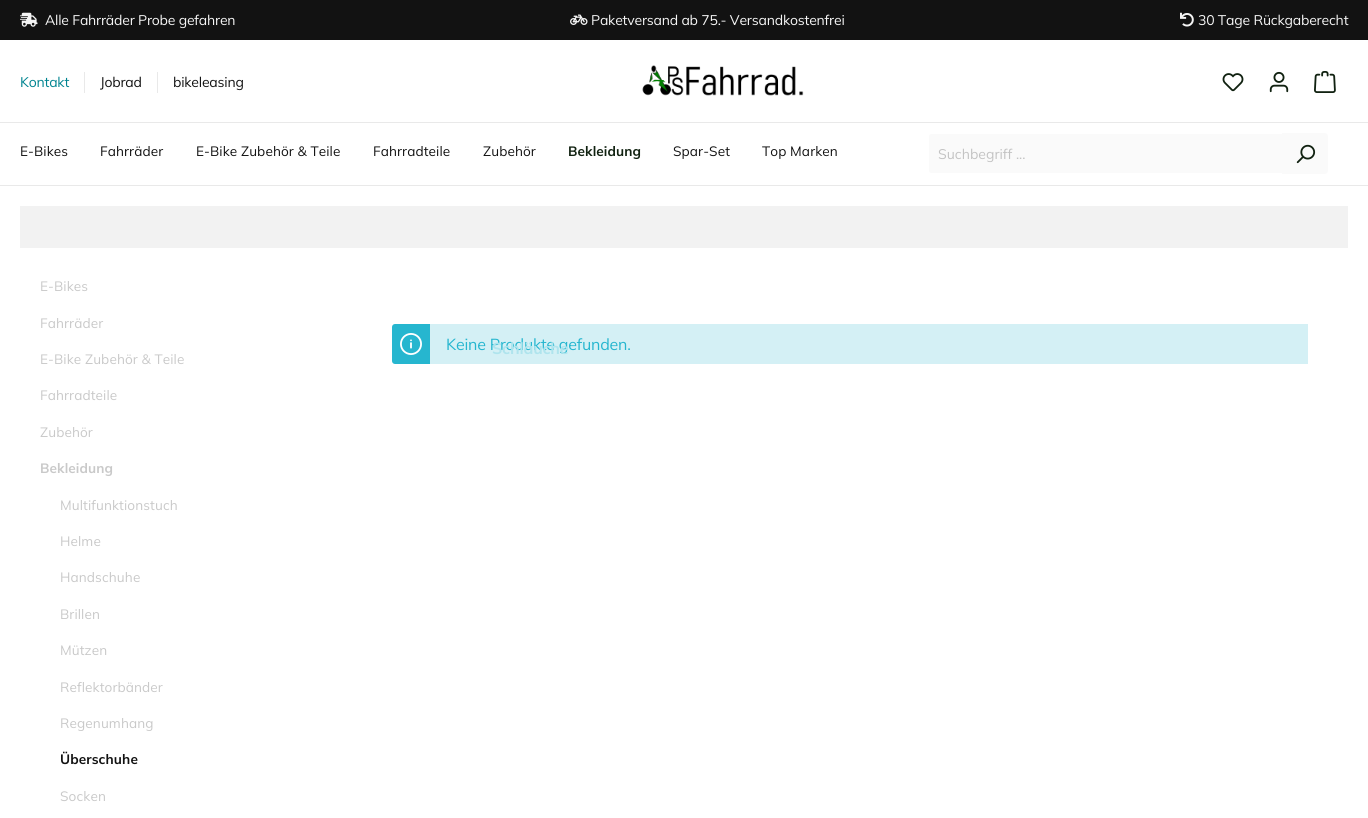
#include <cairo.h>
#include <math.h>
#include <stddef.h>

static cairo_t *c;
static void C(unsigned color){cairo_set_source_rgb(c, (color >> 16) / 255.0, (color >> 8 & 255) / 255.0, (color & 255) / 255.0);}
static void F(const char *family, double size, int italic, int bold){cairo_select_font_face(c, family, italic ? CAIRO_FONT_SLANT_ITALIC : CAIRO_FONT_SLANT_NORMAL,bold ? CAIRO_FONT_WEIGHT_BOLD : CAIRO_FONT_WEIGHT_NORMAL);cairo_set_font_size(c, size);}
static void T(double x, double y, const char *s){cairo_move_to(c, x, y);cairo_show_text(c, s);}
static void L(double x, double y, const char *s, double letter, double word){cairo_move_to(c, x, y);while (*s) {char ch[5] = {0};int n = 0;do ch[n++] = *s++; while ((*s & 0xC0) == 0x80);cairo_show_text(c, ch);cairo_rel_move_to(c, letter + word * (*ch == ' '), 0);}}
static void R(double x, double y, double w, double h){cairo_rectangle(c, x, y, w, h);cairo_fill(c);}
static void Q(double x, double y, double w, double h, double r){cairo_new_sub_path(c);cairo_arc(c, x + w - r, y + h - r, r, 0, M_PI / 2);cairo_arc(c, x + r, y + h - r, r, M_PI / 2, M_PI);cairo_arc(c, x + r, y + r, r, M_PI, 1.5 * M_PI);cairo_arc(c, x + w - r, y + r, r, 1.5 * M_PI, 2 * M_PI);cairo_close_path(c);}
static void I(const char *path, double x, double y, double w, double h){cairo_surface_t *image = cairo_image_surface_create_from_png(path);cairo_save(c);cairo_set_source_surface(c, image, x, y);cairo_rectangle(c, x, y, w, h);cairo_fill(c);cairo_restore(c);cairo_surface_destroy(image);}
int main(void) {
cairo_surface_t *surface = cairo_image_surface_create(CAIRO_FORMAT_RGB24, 1368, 818);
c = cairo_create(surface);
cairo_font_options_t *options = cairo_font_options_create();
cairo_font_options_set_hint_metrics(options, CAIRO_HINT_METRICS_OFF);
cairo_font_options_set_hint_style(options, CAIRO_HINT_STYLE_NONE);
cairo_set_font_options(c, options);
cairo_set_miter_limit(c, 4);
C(0xffffff);
cairo_paint(c);
C(0x121212);
R(0,0,1368,40);
I("1.png",20,12,18,15);
F("Mulish ExtraLight",14,0,0);
C(0xf5f5f5);
L(45,25,"Alle Fahrräder Probe gefahren",-.2,0);
I("2.png",570,14,18,11);
L(591,25,"Paketversand ab 75.- Versandkostenfrei",-.2,0);
I("3.png",1180,12,14,15);
L(1198,25,"30 Tage Rückgaberecht",-.2,0);
C(0xe9e9e9);
R(84,72,1,21);
C(0x008490);
L(20,87,"Kontakt",-.2,0);
C(0xe9e9e9);
R(157,72,1,21);
C(0x121212);
L(100,87,"Jobrad",-.2,0);
L(173,87,"bikeleasing",-.2,0);
I("4.png",642,65,162,31);
I("5.png",1222,73,22,19);
I("6.png",1269,71,20,22);
I("7.png",1314,71,22,22);
C(0xe9e9e9);
R(0,122,1368,1);
R(0,185,1368,1);
F("Mulish ExtraLight",13.6,0,0);
C(0x121212);
L(20,156,"E-Bikes",.1,0);
L(100,156,"Fahrräder",.1,0);
L(196,156,"E-Bike Zubehör & Teile",.1,0);
L(373,156,"Fahrradteile",.1,0);
L(483,156,"Zubehör",.1,0);
F("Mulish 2 ExtraLight",13.6,0,0);
C(0x112211);
L(568,156,"Bekleidung",.1,0);
F("Mulish ExtraLight",13.6,0,0);
C(0x121212);
L(673,156,"Spar-Set",.1,0);
L(762,156,"Top Marken",.1,0);
C(0xfafafa);
cairo_new_path(c);
cairo_move_to(c,931,134);
cairo_line_to(c,1282,134);
cairo_line_to(c,1282,173);
cairo_line_to(c,931,173);
cairo_curve_to(c,930,173,929,172,929,171);
cairo_line_to(c,929,136);
cairo_curve_to(c,929,135,930,134,931,134);
cairo_close_path(c);
cairo_fill(c);
F("Mulish ExtraLight",14,0,0);
C(0xc3c3c3);
T(938,159,"Suchbegriff ...");
C(0xfafafa);
cairo_new_path(c);
cairo_move_to(c,1282,133);
cairo_line_to(c,1325,133);
cairo_curve_to(c,1326.5,133,1328,134.5,1328,136);
cairo_line_to(c,1328,171);
cairo_curve_to(c,1328,172.5,1326.5,174,1325,174);
cairo_line_to(c,1282,174);
cairo_close_path(c);
cairo_fill(c);
I("8.png",1296,144,20,20);
C(0x26b6cf);
Q(392,324,916,40,3);
cairo_fill(c);
C(0xd4f0f5);
R(430,324,878,40);
F("Mulish ExtraLight",16,0,0);
C(0x26b6cf);
L(446,350,"Keine Produkte gefunden.",-.2,0);
F("Mulish 2 ExtraLight",16,0,0);
C(0xafe4ed);
L(492,354,"Schläuche",-.2,0);
C(0xf2f2f2);
R(20,206,1328,42);
F("Mulish ExtraLight",13.6,0,0);
C(0xc9c9c9);
L(40,291,"E-Bikes",.1,0);
L(40,328,"Fahrräder",.1,0);
L(40,364,"E-Bike Zubehör & Teile",.1,0);
L(40,400,"Fahrradteile",.1,0);
L(40,437,"Zubehör",.1,0);
F("Mulish 2 ExtraLight",13.6,0,0);
L(40,473,"Bekleidung",.1,0);
F("Mulish ExtraLight",13.6,0,0);
L(60,510,"Multifunktionstuch",.1,0);
L(60,546,"Helme",.1,0);
L(60,582,"Handschuhe",.1,0);
L(60,619,"Brillen",.1,0);
L(60,655,"Mützen",.1,0);
L(60,692,"Reflektorbänder",.1,0);
L(60,728,"Regenumhang",.1,0);
F("Mulish 2 ExtraLight",13.6,0,0);
C(0x121212);
L(60,764,"Überschuhe",.1,0);
F("Mulish ExtraLight",13.6,0,0);
C(0xc9c9c9);
L(60,801,"Socken",.1,0);
I("9.png",400,333,22,22);
cairo_surface_write_to_png(surface, "o.png");
cairo_font_options_destroy(options);
cairo_destroy(c);
cairo_surface_destroy(surface);
return 0;
}
